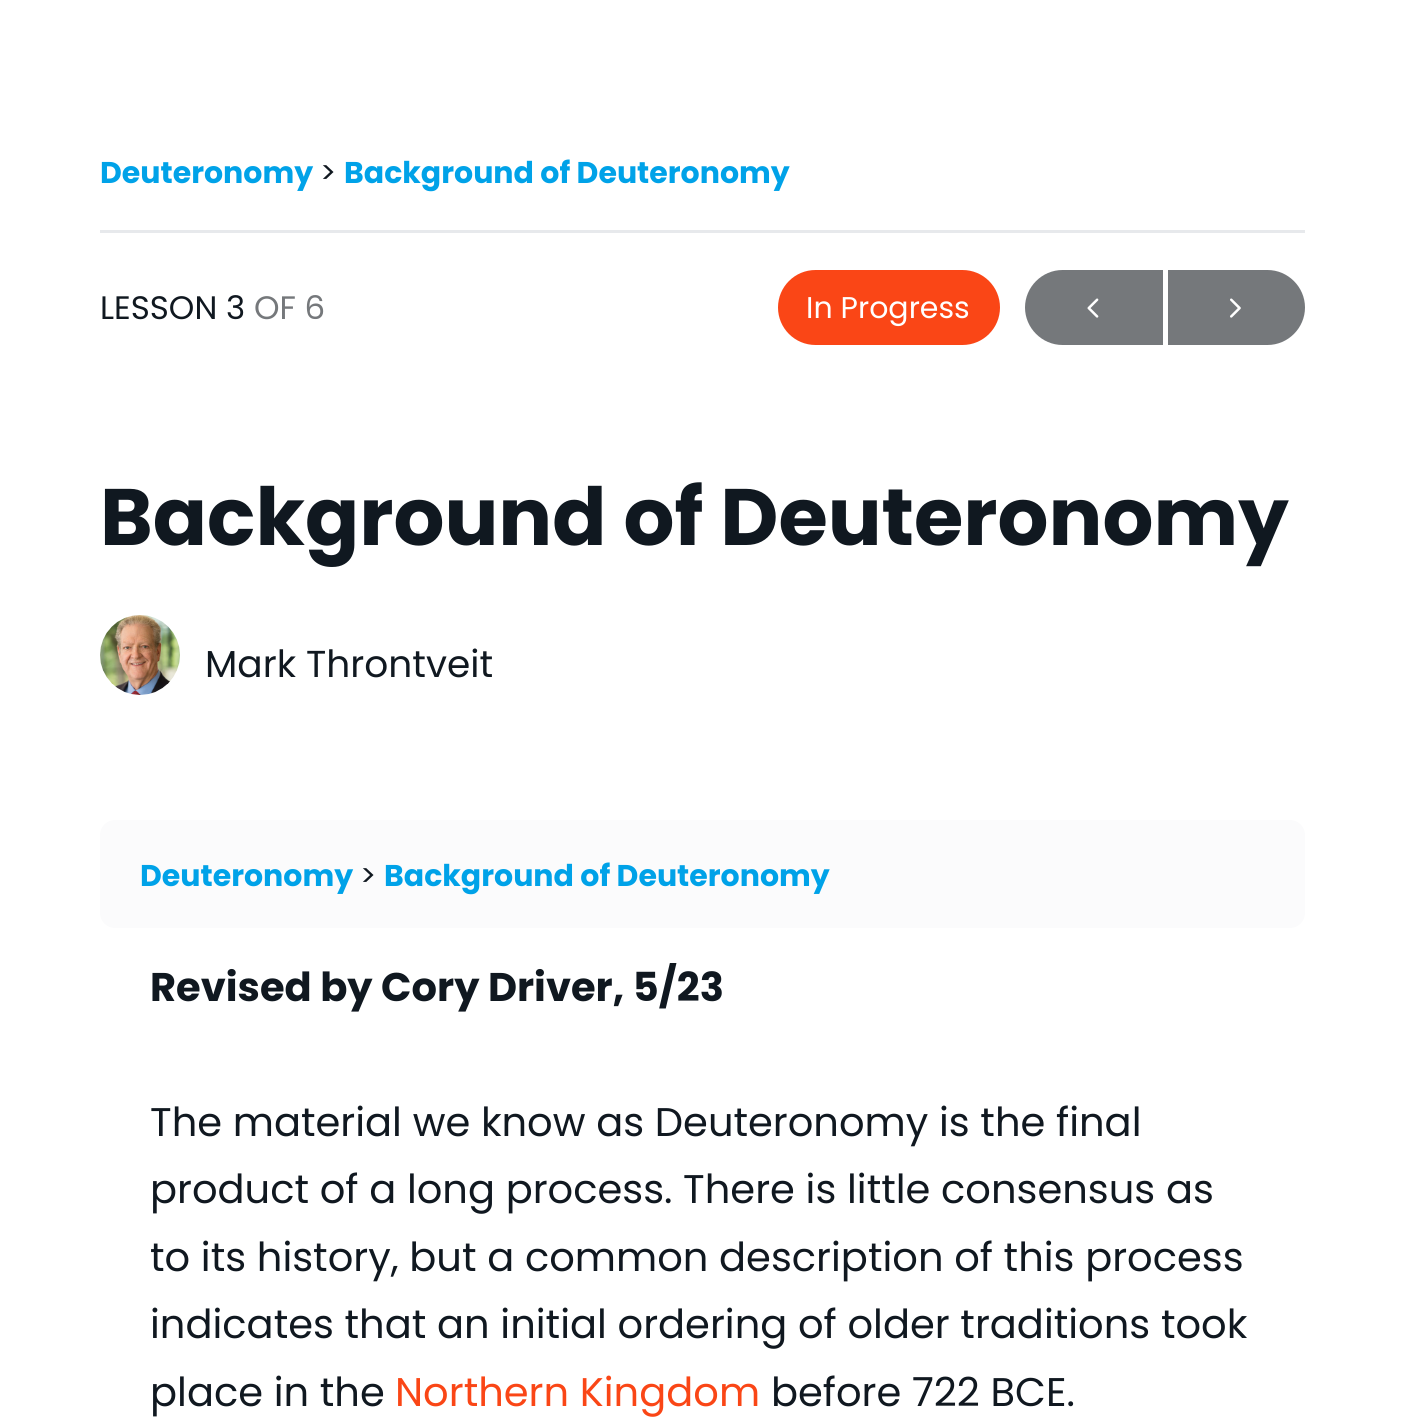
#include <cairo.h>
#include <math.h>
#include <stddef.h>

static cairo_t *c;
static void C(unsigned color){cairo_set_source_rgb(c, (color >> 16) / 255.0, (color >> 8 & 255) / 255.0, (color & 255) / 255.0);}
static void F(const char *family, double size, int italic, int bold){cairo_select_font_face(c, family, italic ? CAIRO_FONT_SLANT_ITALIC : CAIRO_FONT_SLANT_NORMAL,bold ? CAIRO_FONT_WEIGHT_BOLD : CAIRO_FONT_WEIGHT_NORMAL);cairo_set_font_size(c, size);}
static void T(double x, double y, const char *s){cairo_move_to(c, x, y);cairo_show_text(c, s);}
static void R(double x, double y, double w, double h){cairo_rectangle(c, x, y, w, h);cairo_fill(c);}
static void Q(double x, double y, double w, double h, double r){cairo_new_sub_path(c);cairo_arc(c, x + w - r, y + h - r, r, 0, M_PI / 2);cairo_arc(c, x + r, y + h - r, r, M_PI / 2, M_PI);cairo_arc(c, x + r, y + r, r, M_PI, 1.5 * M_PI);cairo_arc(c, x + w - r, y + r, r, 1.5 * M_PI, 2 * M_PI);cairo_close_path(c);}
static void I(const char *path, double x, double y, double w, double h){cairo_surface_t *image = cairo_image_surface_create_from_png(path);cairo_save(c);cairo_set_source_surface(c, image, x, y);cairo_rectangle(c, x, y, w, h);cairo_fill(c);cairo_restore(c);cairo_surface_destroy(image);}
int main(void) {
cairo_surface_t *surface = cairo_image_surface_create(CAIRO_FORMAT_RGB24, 1405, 1418);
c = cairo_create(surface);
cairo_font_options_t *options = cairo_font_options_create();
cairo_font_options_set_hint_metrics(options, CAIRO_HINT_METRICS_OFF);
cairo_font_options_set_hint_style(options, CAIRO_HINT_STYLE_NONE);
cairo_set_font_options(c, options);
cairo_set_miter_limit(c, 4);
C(0xffffff);
cairo_paint(c);
C(0xe7e9ec);
R(100,230,1205,3);
F("Poppins",30,0,1);
C(0x00a2e8);
T(100,183,"Deuteronomy");
F("Poppins",30,0,0);
C(0x101820);
T(320,183,">");
F("Poppins",30,0,1);
C(0x00a2e8);
T(344,183,"Background of Deuteronomy");
F("Poppins",32.5,0,0);
C(0x101820);
T(100,319,"LESSON 3");
C(0x75787b);
T(254,319,"OF 6");
C(0xfa4616);
Q(778,270,222,75,37.5);
cairo_fill(c);
F("Poppins",30,0,0);
C(0xffffff);
T(806,318,"In Progress");
C(0x75787b);
cairo_new_path(c);
cairo_move_to(c,1062.5,270);
cairo_line_to(c,1163,270);
cairo_line_to(c,1163,345);
cairo_line_to(c,1062.5,345);
cairo_curve_to(c,1042,345,1025,328,1025,307.5);
cairo_curve_to(c,1025,287,1042,270,1062.5,270);
cairo_close_path(c);
cairo_fill(c);
I("1.png",1087,298,12,20);
cairo_new_path(c);
cairo_move_to(c,1168,270);
cairo_line_to(c,1267.5,270);
cairo_curve_to(c,1288,270,1305,287,1305,307.5);
cairo_curve_to(c,1305,328,1288,345,1267.5,345);
cairo_line_to(c,1168,345);
cairo_close_path(c);
cairo_fill(c);
I("2.png",1230,298,11,20);
F("Poppins",80,0,1);
C(0x101820);
T(100,545,"Background of Deuteronomy");
I("3.png",100,615,80,80);
F("Poppins",37.5,0,0);
T(205,677,"Mark Throntveit");
C(0xfbfbfc);
Q(100,820,1205,108,15);
cairo_fill(c);
F("Poppins",30,0,1);
C(0x00a2e8);
T(140,886,"Deuteronomy");
F("Poppins",30,0,0);
C(0x101820);
T(360,886,">");
F("Poppins",30,0,1);
C(0x00a2e8);
T(384,886,"Background of Deuteronomy");
F("Poppins",40,0,1);
C(0x101820);
T(150,1001,"Revised by Cory Driver, 5/23");
F("Poppins",40,0,0);
T(150,1136,"The material we know as Deuteronomy is the final");
T(150,1203,"product of a long process. There is little consensus as");
T(150,1271,"to its history, but a common description of this process");
T(150,1338,"indicates that an initial ordering of older traditions took");
T(150,1406,"place in the");
C(0xfa4616);
T(395,1406,"Northern Kingdom");
C(0x101820);
T(771,1406,"before 722 BCE.");
cairo_surface_write_to_png(surface, "o.png");
cairo_font_options_destroy(options);
cairo_destroy(c);
cairo_surface_destroy(surface);
return 0;
}
